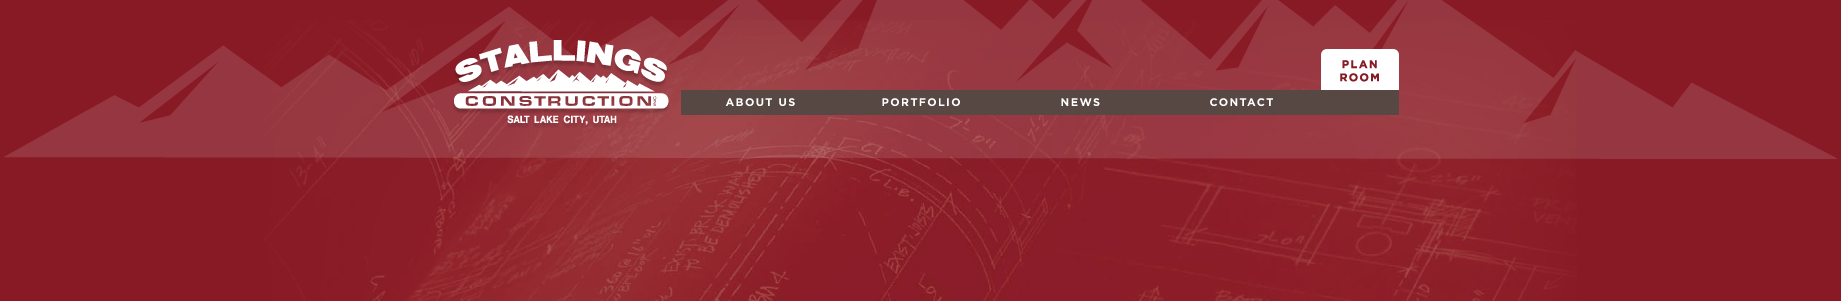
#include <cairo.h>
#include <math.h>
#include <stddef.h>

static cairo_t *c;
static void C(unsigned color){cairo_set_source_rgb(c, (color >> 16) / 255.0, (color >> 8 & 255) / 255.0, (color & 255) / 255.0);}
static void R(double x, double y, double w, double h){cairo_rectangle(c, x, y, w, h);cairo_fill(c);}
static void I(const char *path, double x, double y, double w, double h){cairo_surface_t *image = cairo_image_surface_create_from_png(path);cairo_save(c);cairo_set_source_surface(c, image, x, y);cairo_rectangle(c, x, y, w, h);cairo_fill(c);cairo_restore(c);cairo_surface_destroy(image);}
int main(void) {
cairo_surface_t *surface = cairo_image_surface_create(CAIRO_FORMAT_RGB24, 1841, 301);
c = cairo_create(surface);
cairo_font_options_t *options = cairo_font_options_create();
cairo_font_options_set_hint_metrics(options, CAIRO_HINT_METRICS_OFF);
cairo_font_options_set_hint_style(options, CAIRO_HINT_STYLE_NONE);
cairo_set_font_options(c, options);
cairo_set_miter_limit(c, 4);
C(0x881a25);
cairo_paint(c);
I("1.png",264,20,1313,281);
I("2.png",4,0,1833,159);
I("3.png",452,40,218,88);
C(0x584843);
R(681,90,718,25);
C(0xffffff);
cairo_new_path(c);
cairo_move_to(c,1327,49);
cairo_line_to(c,1393,49);
cairo_curve_to(c,1396.5,49,1399,51.5,1399,55);
cairo_line_to(c,1399,90);
cairo_line_to(c,1321,90);
cairo_line_to(c,1321,55);
cairo_curve_to(c,1321,51.5,1323.5,49,1327,49);
cairo_close_path(c);
cairo_fill(c);
I("4.png",1340,60,39,22);
I("5.png",725,98,70,9);
I("6.png",882,98,78,9);
I("7.png",1061,98,39,8);
I("8.png",1210,98,63,9);
cairo_surface_write_to_png(surface, "o.png");
cairo_font_options_destroy(options);
cairo_destroy(c);
cairo_surface_destroy(surface);
return 0;
}
